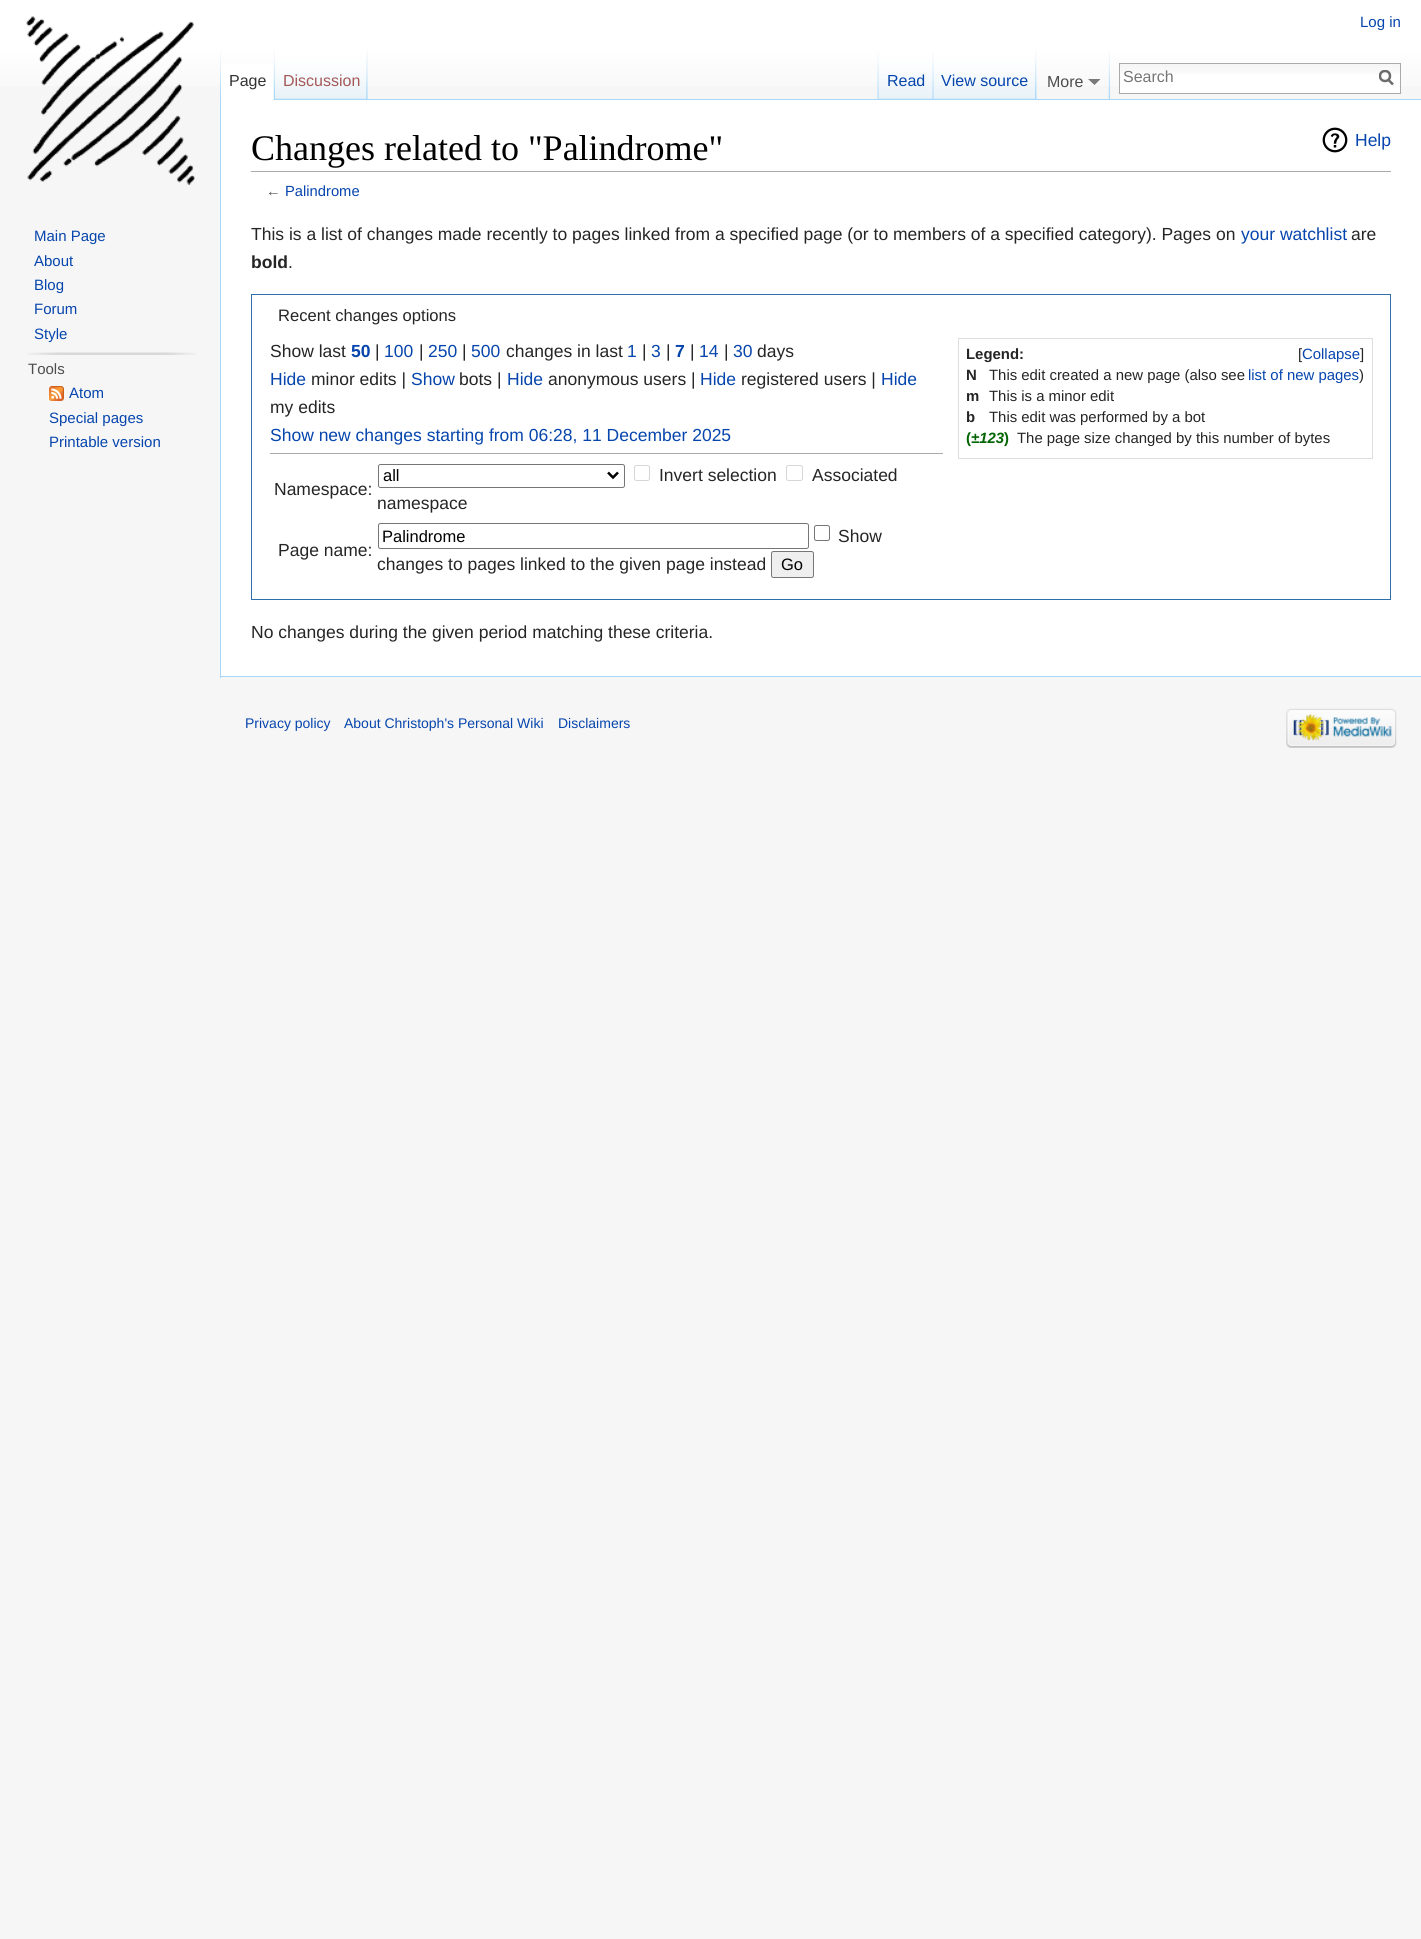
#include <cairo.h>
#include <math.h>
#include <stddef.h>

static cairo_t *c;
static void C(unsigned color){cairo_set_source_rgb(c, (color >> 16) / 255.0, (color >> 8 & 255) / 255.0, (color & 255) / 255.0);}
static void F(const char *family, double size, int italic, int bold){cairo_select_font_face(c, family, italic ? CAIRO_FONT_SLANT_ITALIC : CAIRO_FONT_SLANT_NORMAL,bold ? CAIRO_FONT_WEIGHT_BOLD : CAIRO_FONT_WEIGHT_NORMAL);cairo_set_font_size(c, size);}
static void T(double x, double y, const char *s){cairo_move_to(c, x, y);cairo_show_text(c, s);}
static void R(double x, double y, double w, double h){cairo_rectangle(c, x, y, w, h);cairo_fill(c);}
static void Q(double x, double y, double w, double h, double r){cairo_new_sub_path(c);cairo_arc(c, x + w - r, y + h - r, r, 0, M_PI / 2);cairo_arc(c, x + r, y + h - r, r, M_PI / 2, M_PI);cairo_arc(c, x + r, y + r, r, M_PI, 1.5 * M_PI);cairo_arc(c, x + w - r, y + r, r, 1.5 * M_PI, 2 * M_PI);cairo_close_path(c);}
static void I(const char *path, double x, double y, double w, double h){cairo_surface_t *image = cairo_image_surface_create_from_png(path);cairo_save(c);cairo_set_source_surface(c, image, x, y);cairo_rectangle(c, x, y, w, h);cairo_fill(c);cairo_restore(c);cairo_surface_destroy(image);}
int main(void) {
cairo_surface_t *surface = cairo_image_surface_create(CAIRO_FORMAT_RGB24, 1421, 1939);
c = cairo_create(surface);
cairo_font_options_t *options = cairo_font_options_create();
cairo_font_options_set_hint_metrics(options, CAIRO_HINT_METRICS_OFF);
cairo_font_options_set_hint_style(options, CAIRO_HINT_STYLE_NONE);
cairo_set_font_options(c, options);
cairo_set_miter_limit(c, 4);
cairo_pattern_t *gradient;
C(0xf6f6f6);
cairo_paint(c);
gradient = cairo_pattern_create_linear(711,0,711,100);
cairo_pattern_add_color_stop_rgba(gradient,.5,1,1,1,1);
cairo_pattern_add_color_stop_rgba(gradient,1,0.965,0.965,0.965,1);
cairo_set_source(c,gradient);
cairo_pattern_destroy(gradient);
R(0,0,1421,86);
F("Liberation Sans",15,0,0);
C(0x0645ad);
T(1360,27,"Log in");
I("1.png",220,50,1,49);
C(0xffffff);
R(221,64,53,36);
I("2.png",273,50,2,50);
F("Liberation Sans",16,0,0);
C(0x333333);
T(229,86,"Page");
C(0xf3f3f3);
R(367,50,1,50);
I("3.png",275,50,93,50);
I("4.png",366,52,2,48);
C(0xa55858);
T(283,86,"Discussion");
I("5.png",877,52,2,47);
I("6.png",1036,50,1,49);
C(0xa7d7f9);
R(368,99,1053,1);
I("7.png",878,50,56,50);
I("8.png",932,53,2,47);
C(0x0645ad);
T(887,86,"Read");
I("9.png",933,50,103,50);
I("10.png",1035,50,2,49);
T(941,86,"View source");
I("11.png",1108,50,2,49);
C(0x4d4d4d);
T(1047,87,"More");
C(0x797979);
cairo_new_path(c);
cairo_move_to(c,1100.5,79);
cairo_line_to(c,1094.5,85);
cairo_line_to(c,1088,79);
cairo_close_path(c);
cairo_fill(c);
C(0xffffff);
R(1120,74,280,19);
I("12.png",1120,64,280,10);
cairo_rectangle(c,1119.5,63.5,281,30);
C(0xaaaaaa);
cairo_set_line_width(c,1);
cairo_stroke(c);
C(0x757575);
T(1123,82,"Search");
cairo_new_path(c);
cairo_move_to(c,1393,84.5);
cairo_line_to(c,1388,79.5);
C(0x6c6c6c);
cairo_set_line_width(c,2.5);
cairo_stroke(c);
cairo_save(c);
cairo_rectangle(c,1379,70,15,16);
cairo_clip(c);
cairo_arc(c,1385,76,5,0,2 * M_PI);
cairo_stroke(c);
cairo_restore(c);
I("13.png",26,16,169,169);
F("Liberation Sans",15,0,0);
C(0x0645ad);
T(34,241,"Main Page");
T(34,266,"About");
T(34,290,"Blog");
T(34,314,"Forum");
T(34,339,"Style");
I("14.png",27,352,170,3);
C(0x4d4d4d);
T(28,374,"Tools");
I("15.png",49,386,15,15);
C(0x0645ad);
T(69,398,"Atom");
T(49,423,"Special pages");
T(49,447,"Printable version");
C(0xffffff);
R(221,100,1200,576);
C(0xa7d7f9);
R(220,676,1201,1);
R(220,99,1,579);
C(0xaaaaaa);
R(251,171,1140,1);
F("Liberation Serif",36,0,0);
C(0x000000);
T(251,160,"Changes related to \"Palindrome\"");
I("16.png",1322,127,26,26);
F("Liberation Sans",17.5,0,0);
C(0x0645ad);
T(1355,146,"Help");
F("Liberation Sans",14.75,0,0);
C(0x545454);
T(266,196,"←");
C(0x0645ad);
T(285,196,"Palindrome");
F("Liberation Sans",17.5,0,0);
C(0x252525);
T(251,240,"This is a list of changes made recently to pages linked from a specified page (or to members of a specified category). Pages on");
C(0x0645ad);
T(1241,240,"your watchlist");
C(0x252525);
T(1351,240,"are");
F("Liberation Sans",17.5,0,1);
T(251,268,"bold");
F("Liberation Sans",17.5,0,0);
T(288,268,".");
cairo_rectangle(c,251.5,294.5,1139,305);
C(0x2f6fab);
cairo_set_line_width(c,1);
cairo_stroke(c);
F("Liberation Sans",16.6,0,0);
C(0x252525);
T(278,321,"Recent changes options");
F("Liberation Sans",17.5,0,0);
T(270,357,"Show last");
F("Liberation Sans",17.5,0,1);
C(0x0645ad);
T(351,357,"50");
F("Liberation Sans",17.5,0,0);
C(0x252525);
T(375,357,"|");
C(0x0645ad);
T(384,357,"100");
C(0x252525);
T(419,357,"|");
C(0x0645ad);
T(428,357,"250");
C(0x252525);
T(462,357,"|");
C(0x0645ad);
T(471,357,"500");
C(0x252525);
T(506,357,"changes in last");
C(0x0645ad);
T(627,357,"1");
C(0x252525);
T(642,357,"|");
C(0x0645ad);
T(651,357,"3");
C(0x252525);
T(666,357,"|");
F("Liberation Sans",17.5,0,1);
C(0x0645ad);
T(675,357,"7");
F("Liberation Sans",17.5,0,0);
C(0x252525);
T(690,357,"|");
C(0x0645ad);
T(699,357,"14");
C(0x252525);
T(724,357,"|");
C(0x0645ad);
T(733,357,"30");
C(0x252525);
T(757,357,"days");
cairo_rectangle(c,958.5,338.5,414,120);
C(0xdddddd);
cairo_stroke(c);
F("Liberation Sans",14.9,0,1);
C(0x252525);
T(966,359,"Legend:");
F("Liberation Sans",14.9,0,0);
T(1298,359,"[");
C(0x0645ad);
T(1302,359,"Collapse");
C(0x252525);
T(1360,359,"]");
F("Liberation Sans",14.9,0,1);
T(966,380,"N");
F("Liberation Sans",14.9,0,0);
T(989,380,"This edit created a new page (also see");
C(0x0645ad);
T(1248,380,"list of new pages");
C(0x252525);
T(1359,380,")");
F("Liberation Sans",14.9,0,1);
T(966,401,"m");
F("Liberation Sans",14.9,0,0);
T(989,401,"This is a minor edit");
F("Liberation Sans",14.9,0,1);
T(966,422,"b");
F("Liberation Sans",14.9,0,0);
T(989,422,"This edit was performed by a bot");
F("Liberation Sans",14.9,0,1);
C(0x006400);
T(966,443,"(");
F("Liberation Sans",14.9,1,1);
T(971,443,"±123");
F("Liberation Sans",14.9,0,1);
T(1004,443,")");
F("Liberation Sans",14.9,0,0);
C(0x252525);
T(1017,443,"The page size changed by this number of bytes");
F("Liberation Sans",17.5,0,0);
C(0x0645ad);
T(270,385,"Hide");
C(0x252525);
T(311,385,"minor edits |");
C(0x0645ad);
T(411,385,"Show");
C(0x252525);
T(459,385,"bots |");
C(0x0645ad);
T(507,385,"Hide");
C(0x252525);
T(548,385,"anonymous users |");
C(0x0645ad);
T(700,385,"Hide");
C(0x252525);
T(741,385,"registered users |");
C(0x0645ad);
T(881,385,"Hide");
C(0x252525);
T(270,413,"my edits");
C(0x0645ad);
T(270,441,"Show new changes starting from 06:28, 11 December 2025");
C(0xaaaaaa);
R(270,453,673,1);
C(0x252525);
T(274,495,"Namespace:");
Q(378.5,464.5,246,23,2);
C(0x767676);
cairo_stroke(c);
cairo_new_path(c);
cairo_move_to(c,608,472.5);
cairo_line_to(c,613,477.5);
cairo_line_to(c,618,472.5);
C(0x000000);
cairo_set_line_width(c,2.5);
cairo_stroke(c);
F("Liberation Sans",16.5,0,0);
T(383,481,"all");
Q(634.5,465.5,15,15,2);
C(0xd6d6d6);
cairo_set_line_width(c,1);
cairo_stroke(c);
F("Liberation Sans",17.5,0,0);
C(0x252525);
T(659,481,"Invert selection");
Q(786.5,465.5,16,15,2);
C(0xd6d6d6);
cairo_stroke(c);
C(0x252525);
T(812,481,"Associated");
T(377,509,"namespace");
T(278,556,"Page name:");
Q(378.5,523.5,430,25,2);
C(0x767676);
cairo_stroke(c);
F("Liberation Sans",16.5,0,0);
C(0x000000);
T(382,542,"Palindrome");
Q(814.5,525.5,15,15,2);
C(0x767676);
cairo_stroke(c);
F("Liberation Sans",17.5,0,0);
C(0x252525);
T(838,542,"Show");
T(377,570,"changes to pages linked to the given page instead");
C(0xefefef);
Q(771.5,551.5,42,26,2);
cairo_fill_preserve(c);
C(0x767676);
cairo_stroke(c);
F("Liberation Sans",16.5,0,0);
C(0x000000);
T(781,570,"Go");
F("Liberation Sans",17.5,0,0);
C(0x252525);
T(251,638,"No changes during the given period matching these criteria.");
F("Liberation Sans",14,0,0);
C(0x0645ad);
T(245,728,"Privacy policy");
T(344,728,"About Christoph's Personal Wiki");
T(558,728,"Disclaimers");
I("17.png",1286,708,111,40);
cairo_surface_write_to_png(surface, "o.png");
cairo_font_options_destroy(options);
cairo_destroy(c);
cairo_surface_destroy(surface);
return 0;
}
